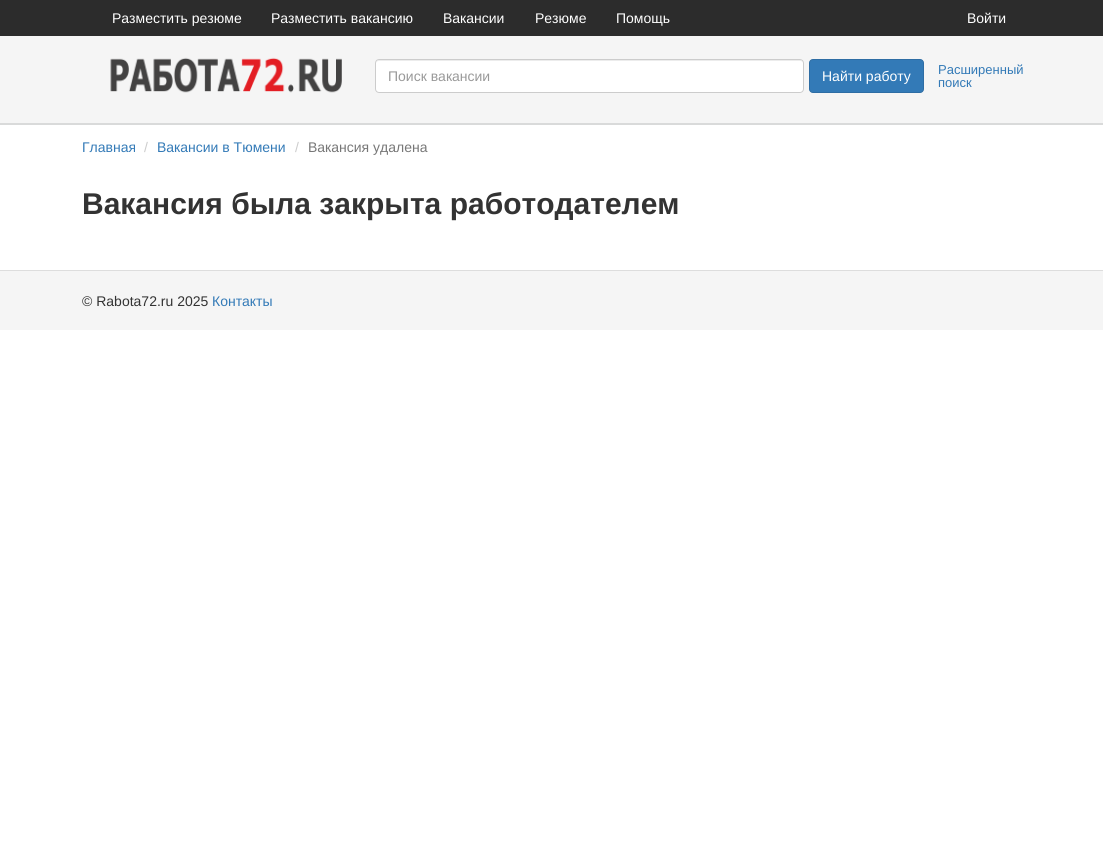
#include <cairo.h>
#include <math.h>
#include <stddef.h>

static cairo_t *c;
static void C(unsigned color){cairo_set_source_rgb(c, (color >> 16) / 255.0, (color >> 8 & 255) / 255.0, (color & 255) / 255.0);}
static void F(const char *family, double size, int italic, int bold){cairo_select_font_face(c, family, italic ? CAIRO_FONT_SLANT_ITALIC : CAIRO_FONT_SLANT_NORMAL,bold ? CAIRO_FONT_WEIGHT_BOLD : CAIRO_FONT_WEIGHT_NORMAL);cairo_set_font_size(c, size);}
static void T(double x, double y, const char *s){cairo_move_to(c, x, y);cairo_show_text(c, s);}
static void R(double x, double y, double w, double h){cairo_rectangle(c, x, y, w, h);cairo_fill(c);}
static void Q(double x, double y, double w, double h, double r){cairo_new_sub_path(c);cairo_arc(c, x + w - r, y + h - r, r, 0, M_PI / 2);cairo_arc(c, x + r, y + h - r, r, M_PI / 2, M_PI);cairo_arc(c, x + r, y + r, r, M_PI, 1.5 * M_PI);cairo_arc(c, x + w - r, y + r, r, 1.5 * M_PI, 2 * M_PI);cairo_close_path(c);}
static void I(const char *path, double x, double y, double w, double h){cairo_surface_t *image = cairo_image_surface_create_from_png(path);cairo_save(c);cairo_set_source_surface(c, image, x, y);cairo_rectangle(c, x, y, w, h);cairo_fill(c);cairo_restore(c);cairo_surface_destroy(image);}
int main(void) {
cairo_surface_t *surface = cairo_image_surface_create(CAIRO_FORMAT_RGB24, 1103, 859);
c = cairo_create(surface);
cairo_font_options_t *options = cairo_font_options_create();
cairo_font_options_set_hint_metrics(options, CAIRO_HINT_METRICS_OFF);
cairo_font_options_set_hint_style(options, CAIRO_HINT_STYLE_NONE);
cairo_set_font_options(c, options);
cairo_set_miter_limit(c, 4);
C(0xffffff);
cairo_paint(c);
C(0x2c2c2c);
R(0,0,1103,36);
F("Liberation Sans",14,0,0);
C(0xffffff);
T(112,23,"Разместить резюме");
T(271,23,"Разместить вакансию");
T(443,23,"Вакансии");
T(535,23,"Резюме");
T(616,23,"Помощь");
T(967,23,"Войти");
C(0xf5f5f5);
R(0,36,1103,87);
C(0xd9dada);
R(0,123,1103,2);
I("1.png",110,57,232,36);
C(0xffffff);
Q(375,59,429,34,4);
cairo_fill(c);
C(0xececec);
cairo_new_path(c);
cairo_move_to(c,379,61);
cairo_line_to(c,800,61);
cairo_curve_to(c,802,61,803,62,803,64);
cairo_curve_to(c,803,62,802,60,800,60);
cairo_line_to(c,379,60);
cairo_curve_to(c,377,60,376,62,376,64);
cairo_curve_to(c,376,62,377,61,379,61);
cairo_close_path(c);
cairo_fill(c);
Q(375.5,59.5,428,33,3.5);
C(0xcccccc);
cairo_set_line_width(c,1);
cairo_stroke(c);
C(0x999999);
T(388,81,"Поиск вакансии");
C(0x337ab7);
Q(809.5,59.5,114,33,3.5);
cairo_fill_preserve(c);
C(0x2e6da4);
cairo_stroke(c);
C(0xffffff);
T(822,81,"Найти работу");
F("Liberation Sans",13,0,0);
C(0x337ab7);
T(938,74,"Расширенный");
T(938,87,"поиск");
F("Liberation Sans",14,0,0);
T(82,152,"Главная");
C(0xcccccc);
T(144,152,"/");
C(0x337ab7);
T(157,152,"Вакансии в Тюмени");
C(0xcccccc);
T(295,152,"/");
C(0x777777);
T(308,152,"Вакансия удалена");
F("Liberation Sans",30,0,1);
C(0x333333);
T(82,214,"Вакансия была закрыта работодателем");
C(0xf5f5f5);
R(0,271,1103,59);
C(0xdddddd);
R(0,270,1103,1);
F("Liberation Sans",14,0,0);
C(0x333333);
T(82,306,"© Rabota72.ru 2025");
C(0x337ab7);
T(212,306,"Контакты");
cairo_surface_write_to_png(surface, "o.png");
cairo_font_options_destroy(options);
cairo_destroy(c);
cairo_surface_destroy(surface);
return 0;
}
